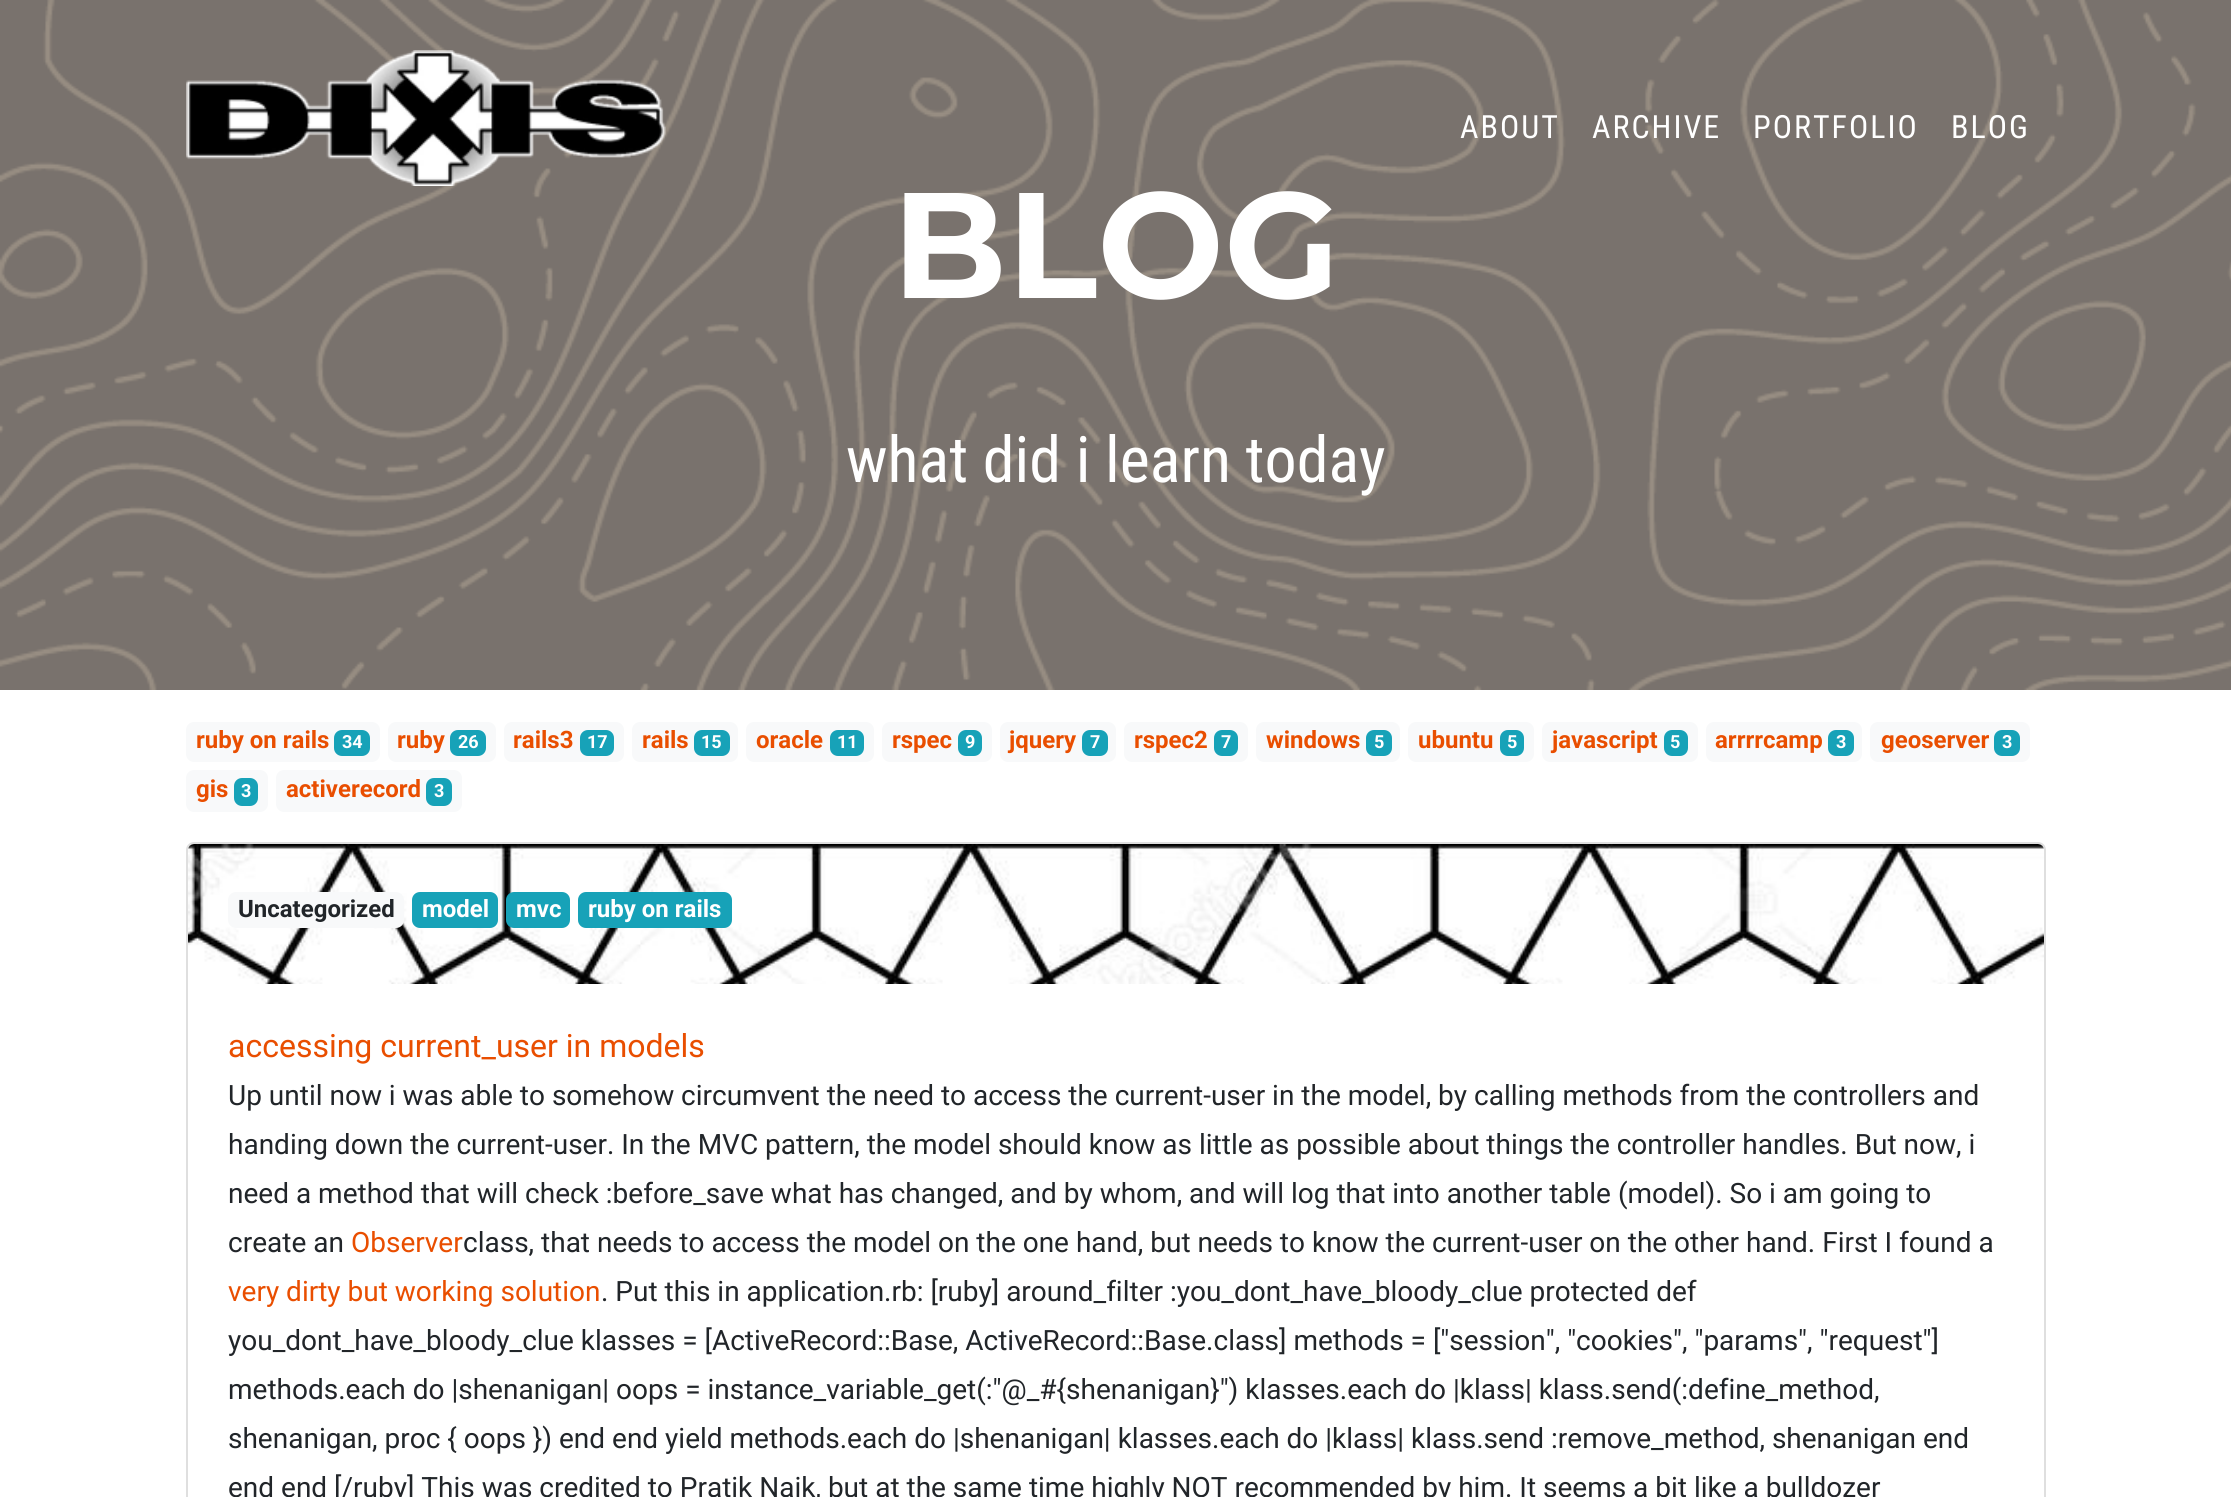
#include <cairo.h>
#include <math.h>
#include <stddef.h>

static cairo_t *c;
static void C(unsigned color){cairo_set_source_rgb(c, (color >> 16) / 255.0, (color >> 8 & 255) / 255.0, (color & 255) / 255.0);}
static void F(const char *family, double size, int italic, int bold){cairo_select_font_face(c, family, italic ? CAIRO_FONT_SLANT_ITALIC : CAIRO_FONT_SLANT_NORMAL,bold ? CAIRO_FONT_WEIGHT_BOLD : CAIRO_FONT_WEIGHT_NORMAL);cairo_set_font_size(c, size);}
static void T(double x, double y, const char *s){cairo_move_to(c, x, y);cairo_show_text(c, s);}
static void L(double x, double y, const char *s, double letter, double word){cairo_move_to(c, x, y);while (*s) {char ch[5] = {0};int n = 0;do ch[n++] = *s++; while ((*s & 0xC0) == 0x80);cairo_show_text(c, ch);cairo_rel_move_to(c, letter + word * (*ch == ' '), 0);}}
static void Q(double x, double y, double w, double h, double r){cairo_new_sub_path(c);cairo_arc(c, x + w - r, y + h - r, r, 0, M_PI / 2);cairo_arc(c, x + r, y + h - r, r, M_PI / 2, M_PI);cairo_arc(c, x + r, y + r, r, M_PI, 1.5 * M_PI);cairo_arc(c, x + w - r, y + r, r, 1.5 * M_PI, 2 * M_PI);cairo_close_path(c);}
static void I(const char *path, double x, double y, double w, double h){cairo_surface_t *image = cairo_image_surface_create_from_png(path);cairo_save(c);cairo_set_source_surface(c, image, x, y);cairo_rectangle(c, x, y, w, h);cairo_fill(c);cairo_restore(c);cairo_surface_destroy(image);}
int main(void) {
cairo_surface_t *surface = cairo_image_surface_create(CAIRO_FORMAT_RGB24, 2231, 1497);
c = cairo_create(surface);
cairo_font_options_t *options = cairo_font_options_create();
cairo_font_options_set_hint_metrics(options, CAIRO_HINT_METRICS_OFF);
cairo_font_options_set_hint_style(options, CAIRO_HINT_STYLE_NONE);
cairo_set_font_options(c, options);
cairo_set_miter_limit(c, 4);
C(0xffffff);
cairo_paint(c);
I("2.png",0,0,2231,690);
I("1.png",186,50,480,136);
F("Roboto Condensed",32,0,0);
C(0xffffff);
L(1460,138,"ABOUT",2,0);
L(1592,138,"ARCHIVE",2,0);
L(1753,138,"PORTFOLIO",2,0);
L(1951,138,"BLOG",2,0);
F("Montserrat",150,0,1);
T(892,298,"BLOG");
F("Roboto Condensed",64,0,0);
T(846,482,"what did i learn today");
C(0xf8f9fa);
Q(186,722,194,40,8);
cairo_fill(c);
F("Roboto",24,0,1);
C(0xe94e00);
T(196,748,"ruby on rails");
C(0x17a2b8);
Q(334,730,36,26,8);
cairo_fill(c);
F("Roboto",18,0,1);
C(0xffffff);
T(342,748,"34");
C(0xf8f9fa);
Q(388,722,108,40,8);
cairo_fill(c);
F("Roboto",24,0,1);
C(0xe94e00);
T(397,748,"ruby");
C(0x17a2b8);
Q(450,730,36,26,8);
cairo_fill(c);
F("Roboto",18,0,1);
C(0xffffff);
T(458,748,"26");
C(0xf8f9fa);
Q(504,722,120,40,8);
cairo_fill(c);
F("Roboto",24,0,1);
C(0xe94e00);
T(513,748,"rails3");
C(0x17a2b8);
Q(580,730,34,26,8);
cairo_fill(c);
F("Roboto",18,0,1);
C(0xffffff);
T(587,748,"17");
C(0xf8f9fa);
Q(632,722,106,40,8);
cairo_fill(c);
F("Roboto",24,0,1);
C(0xe94e00);
T(642,748,"rails");
C(0x17a2b8);
Q(694,730,36,26,8);
cairo_fill(c);
F("Roboto",18,0,1);
C(0xffffff);
T(701,748,"15");
C(0xf8f9fa);
Q(746,722,128,40,8);
cairo_fill(c);
F("Roboto",24,0,1);
C(0xe94e00);
T(756,748,"oracle");
C(0x17a2b8);
Q(830,730,34,26,8);
cairo_fill(c);
F("Roboto",18,0,1);
C(0xffffff);
T(837,748,"11");
C(0xf8f9fa);
Q(882,722,110,40,8);
cairo_fill(c);
F("Roboto",24,0,1);
C(0xe94e00);
T(892,748,"rspec");
C(0x17a2b8);
Q(958,730,24,26,8);
cairo_fill(c);
F("Roboto",18,0,1);
C(0xffffff);
T(965,748,"9");
C(0xf8f9fa);
Q(1000,722,116,40,8);
cairo_fill(c);
F("Roboto",24,0,1);
C(0xe94e00);
T(1009,748,"jquery");
C(0x17a2b8);
Q(1082,730,26,26,8);
cairo_fill(c);
F("Roboto",18,0,1);
C(0xffffff);
T(1090,748,"7");
C(0xf8f9fa);
Q(1124,722,124,40,8);
cairo_fill(c);
F("Roboto",24,0,1);
C(0xe94e00);
T(1134,748,"rspec2");
C(0x17a2b8);
Q(1214,730,24,26,8);
cairo_fill(c);
F("Roboto",18,0,1);
C(0xffffff);
T(1221,748,"7");
C(0xf8f9fa);
Q(1256,722,144,40,8);
cairo_fill(c);
F("Roboto",24,0,1);
C(0xe94e00);
T(1266,748,"windows");
C(0x17a2b8);
Q(1366,730,26,26,8);
cairo_fill(c);
F("Roboto",18,0,1);
C(0xffffff);
T(1374,748,"5");
C(0xf8f9fa);
Q(1408,722,126,40,8);
cairo_fill(c);
F("Roboto",24,0,1);
C(0xe94e00);
T(1418,748,"ubuntu");
C(0x17a2b8);
Q(1500,730,24,26,8);
cairo_fill(c);
F("Roboto",18,0,1);
C(0xffffff);
T(1507,748,"5");
C(0xf8f9fa);
Q(1542,722,156,40,8);
cairo_fill(c);
F("Roboto",24,0,1);
C(0xe94e00);
T(1552,748,"javascript");
C(0x17a2b8);
Q(1664,730,24,26,8);
cairo_fill(c);
F("Roboto",18,0,1);
C(0xffffff);
T(1670,748,"5");
C(0xf8f9fa);
Q(1706,722,156,40,8);
cairo_fill(c);
F("Roboto",24,0,1);
C(0xe94e00);
T(1715,748,"arrrrcamp");
C(0x17a2b8);
Q(1828,730,26,26,8);
cairo_fill(c);
F("Roboto",18,0,1);
C(0xffffff);
T(1836,748,"3");
C(0xf8f9fa);
Q(1870,722,160,40,8);
cairo_fill(c);
F("Roboto",24,0,1);
C(0xe94e00);
T(1881,748,"geoserver");
C(0x17a2b8);
Q(1994,730,26,26,8);
cairo_fill(c);
F("Roboto",18,0,1);
C(0xffffff);
T(2002,748,"3");
C(0xf8f9fa);
Q(186,770,82,42,8);
cairo_fill(c);
F("Roboto",24,0,1);
C(0xe94e00);
T(196,797,"gis");
C(0x17a2b8);
Q(234,778,24,28,8);
cairo_fill(c);
F("Roboto",18,0,1);
C(0xffffff);
T(241,797,"3");
C(0xf8f9fa);
Q(276,770,186,42,8);
cairo_fill(c);
F("Roboto",24,0,1);
C(0xe94e00);
T(286,797,"activerecord");
C(0x17a2b8);
Q(426,778,26,28,8);
cairo_fill(c);
F("Roboto",18,0,1);
C(0xffffff);
T(434,797,"3");
Q(187,843,1858,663,7);
C(0xdfdfdf);
cairo_stroke(c);
I("3.png",188,844,1856,140);
C(0xf8f9fa);
Q(228,892,176,36,8);
cairo_fill(c);
F("Roboto",24,0,1);
C(0x212529);
T(238,917,"Uncategorized");
C(0x17a2b8);
Q(412,892,86,36,8);
cairo_fill(c);
C(0xffffff);
T(422,917,"model");
C(0x17a2b8);
Q(506,892,64,36,8);
cairo_fill(c);
C(0xffffff);
T(516,917,"mvc");
C(0x17a2b8);
Q(578,892,154,36,8);
cairo_fill(c);
C(0xffffff);
T(588,917,"ruby on rails");
F("Roboto",32,0,0);
C(0xe94e00);
T(228,1057,"accessing current_user in models");
F("Roboto",28,0,0);
C(0x212529);
T(228,1105,"Up until now i was able to somehow circumvent the need to access the current-user in the model, by calling methods from the controllers and");
T(228,1154,"handing down the current-user. In the MVC pattern, the model should know as little as possible about things the controller handles. But now, i");
T(228,1203,"need a method that will check :before_save what has changed, and by whom, and will log that into another table (model). So i am going to");
T(228,1252,"create an");
C(0xe94e00);
T(351,1252,"Observer");
C(0x212529);
T(463,1252,"class, that needs to access the model on the one hand, but needs to know the current-user on the other hand. First I found a");
C(0xe94e00);
T(228,1301,"very dirty but working solution");
C(0x212529);
T(601,1301,". Put this in application.rb: [ruby] around_filter :you_dont_have_bloody_clue protected def");
T(228,1350,"you_dont_have_bloody_clue klasses = [ActiveRecord::Base, ActiveRecord::Base.class] methods = [\"session\", \"cookies\", \"params\", \"request\"]");
T(228,1399,"methods.each do |shenanigan| oops = instance_variable_get(:\"@_#{shenanigan}\") klasses.each do |klass| klass.send(:define_method,");
T(228,1448,"shenanigan, proc { oops }) end end yield methods.each do |shenanigan| klasses.each do |klass| klass.send :remove_method, shenanigan end");
T(228,1497,"end end [/ruby] This was credited to Pratik Naik, but at the same time highly NOT recommended by him. It seems a bit like a bulldozer");
cairo_surface_write_to_png(surface, "o.png");
cairo_font_options_destroy(options);
cairo_destroy(c);
cairo_surface_destroy(surface);
return 0;
}
